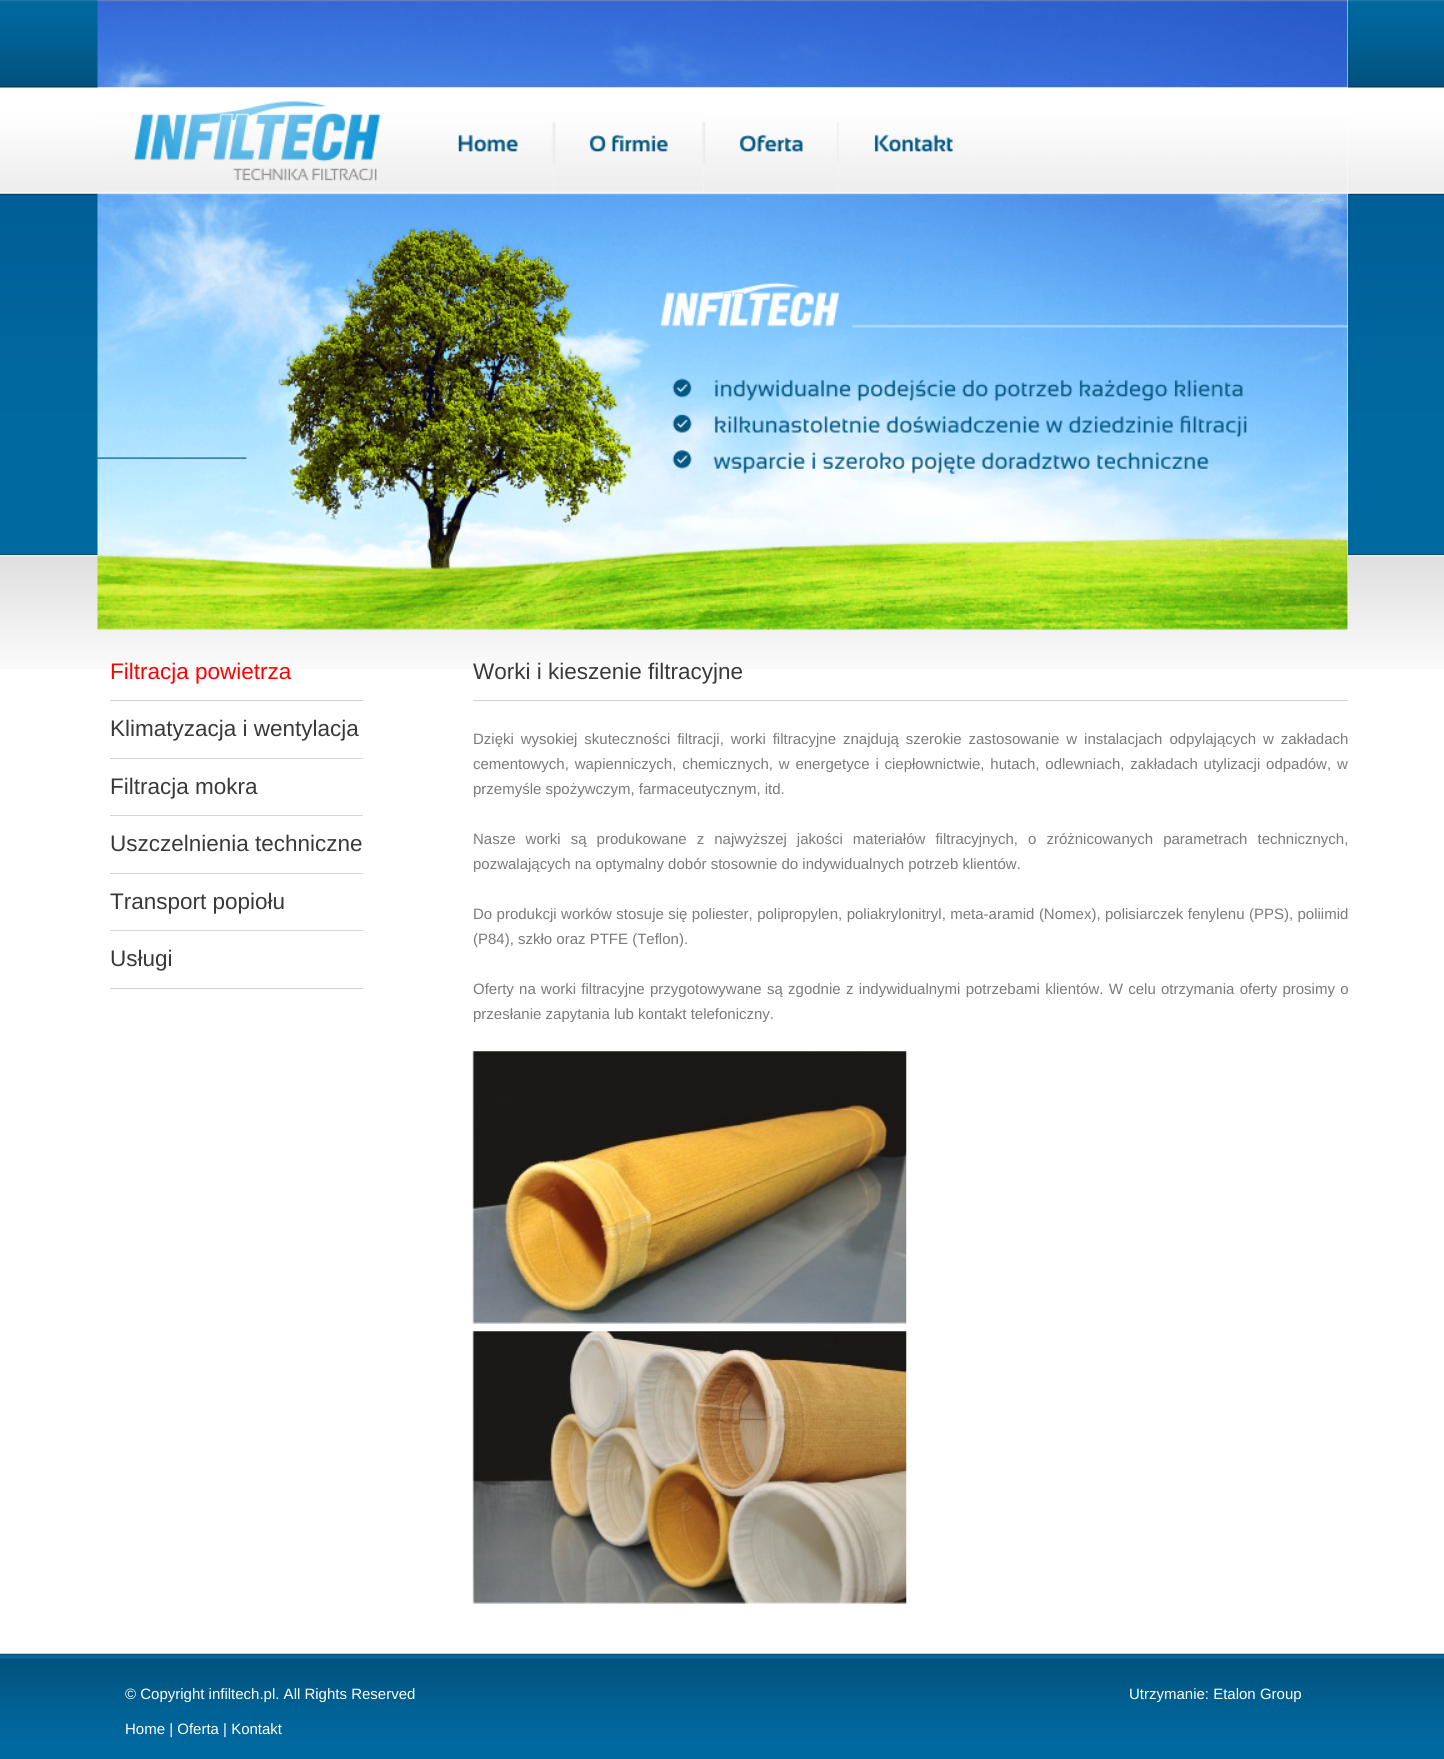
#include <cairo.h>
#include <math.h>
#include <stddef.h>

static cairo_t *c;
static void C(unsigned color){cairo_set_source_rgb(c, (color >> 16) / 255.0, (color >> 8 & 255) / 255.0, (color & 255) / 255.0);}
static void F(const char *family, double size, int italic, int bold){cairo_select_font_face(c, family, italic ? CAIRO_FONT_SLANT_ITALIC : CAIRO_FONT_SLANT_NORMAL,bold ? CAIRO_FONT_WEIGHT_BOLD : CAIRO_FONT_WEIGHT_NORMAL);cairo_set_font_size(c, size);}
static void T(double x, double y, const char *s){cairo_move_to(c, x, y);cairo_show_text(c, s);}
static void L(double x, double y, const char *s, double letter, double word){cairo_move_to(c, x, y);while (*s) {char ch[5] = {0};int n = 0;do ch[n++] = *s++; while ((*s & 0xC0) == 0x80);cairo_show_text(c, ch);cairo_rel_move_to(c, letter + word * (*ch == ' '), 0);}}
static void R(double x, double y, double w, double h){cairo_rectangle(c, x, y, w, h);cairo_fill(c);}
static void I(const char *path, double x, double y, double w, double h){cairo_surface_t *image = cairo_image_surface_create_from_png(path);cairo_save(c);cairo_set_source_surface(c, image, x, y);cairo_rectangle(c, x, y, w, h);cairo_fill(c);cairo_restore(c);cairo_surface_destroy(image);}
int main(void) {
cairo_surface_t *surface = cairo_image_surface_create(CAIRO_FORMAT_RGB24, 1444, 1759);
c = cairo_create(surface);
cairo_font_options_t *options = cairo_font_options_create();
cairo_font_options_set_hint_metrics(options, CAIRO_HINT_METRICS_OFF);
cairo_font_options_set_hint_style(options, CAIRO_HINT_STYLE_NONE);
cairo_set_font_options(c, options);
cairo_set_miter_limit(c, 4);
C(0xffffff);
cairo_paint(c);
I("1.png",0,0,1444,669);
C(0xffffff);
R(98,0,1250,630);
I("2.png",97,0,1251,88);
I("3.png",97,87,457,107);
I("4.png",553,87,151,107);
I("5.png",703,87,136,107);
I("6.png",838,87,510,107);
I("7.png",97,193,1251,437);
C(0xd3d3d3);
R(110,700,253,1);
F("Liberation Sans",22.5,0,0);
C(0xff0000);
T(110,679,"Filtracja powietrza");
C(0xd3d3d3);
R(110,758,253,1);
C(0x393939);
T(110,736,"Klimatyzacja i wentylacja");
C(0xd3d3d3);
R(110,815,253,1);
C(0x393939);
T(110,794,"Filtracja mokra");
C(0xd3d3d3);
R(110,873,253,1);
C(0x393939);
T(110,851,"Uszczelnienia techniczne");
C(0xd3d3d3);
R(110,930,253,1);
C(0x393939);
T(110,909,"Transport popiołu");
C(0xd3d3d3);
R(110,988,253,1);
C(0x393939);
T(110,966,"Usługi");
C(0xd3d3d3);
R(473,700,875,1);
C(0x393939);
T(473,679,"Worki i kieszenie filtracyjne");
F("Liberation Sans",15,0,0);
C(0x7a7a7a);
L(473,744,"Dzięki wysokiej skuteczności filtracji, worki filtracyjne znajdują szerokie zastosowanie w instalacjach odpylających w zakładach",0,2.75);
L(473,769,"cementowych, wapienniczych, chemicznych, w energetyce i ciepłownictwie, hutach, odlewniach, zakładach utylizacji odpadów, w",0,1.6);
T(473,794,"przemyśle spożywczym, farmaceutycznym, itd.");
L(473,844,"Nasze worki są produkowane z najwyższej jakości materiałów filtracyjnych, o zróżnicowanych parametrach technicznych,",0,5.9);
T(473,869,"pozwalających na optymalny dobór stosownie do indywidualnych potrzeb klientów.");
L(473,919,"Do produkcji worków stosuje się poliester, polipropylen, poliakrylonitryl, meta-aramid (Nomex), polisiarczek fenylenu (PPS), poliimid",0,.25);
T(473,944,"(P84), szkło oraz PTFE (Teflon).");
L(473,994,"Oferty na worki filtracyjne przygotowywane są zgodnie z indywidualnymi potrzebami klientów. W celu otrzymania oferty prosimy o",0,1.1);
T(473,1019,"przesłanie zapytania lub kontakt telefoniczny.");
I("8.png",472,1051,435,273);
I("9.png",472,1331,435,273);
I("10.png",0,1653,1444,106);
C(0xffffff);
T(125,1699,"© Copyright infiltech.pl. All Rights Reserved");
T(1129,1699,"Utrzymanie: Etalon Group");
T(125,1734,"Home | Oferta | Kontakt");
cairo_surface_write_to_png(surface, "o.png");
cairo_font_options_destroy(options);
cairo_destroy(c);
cairo_surface_destroy(surface);
return 0;
}
